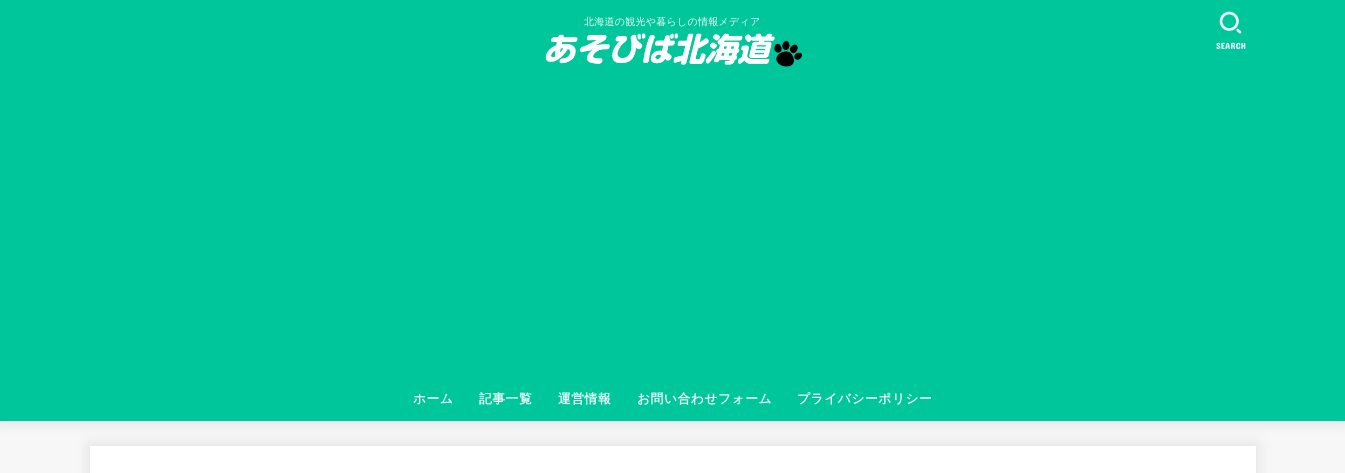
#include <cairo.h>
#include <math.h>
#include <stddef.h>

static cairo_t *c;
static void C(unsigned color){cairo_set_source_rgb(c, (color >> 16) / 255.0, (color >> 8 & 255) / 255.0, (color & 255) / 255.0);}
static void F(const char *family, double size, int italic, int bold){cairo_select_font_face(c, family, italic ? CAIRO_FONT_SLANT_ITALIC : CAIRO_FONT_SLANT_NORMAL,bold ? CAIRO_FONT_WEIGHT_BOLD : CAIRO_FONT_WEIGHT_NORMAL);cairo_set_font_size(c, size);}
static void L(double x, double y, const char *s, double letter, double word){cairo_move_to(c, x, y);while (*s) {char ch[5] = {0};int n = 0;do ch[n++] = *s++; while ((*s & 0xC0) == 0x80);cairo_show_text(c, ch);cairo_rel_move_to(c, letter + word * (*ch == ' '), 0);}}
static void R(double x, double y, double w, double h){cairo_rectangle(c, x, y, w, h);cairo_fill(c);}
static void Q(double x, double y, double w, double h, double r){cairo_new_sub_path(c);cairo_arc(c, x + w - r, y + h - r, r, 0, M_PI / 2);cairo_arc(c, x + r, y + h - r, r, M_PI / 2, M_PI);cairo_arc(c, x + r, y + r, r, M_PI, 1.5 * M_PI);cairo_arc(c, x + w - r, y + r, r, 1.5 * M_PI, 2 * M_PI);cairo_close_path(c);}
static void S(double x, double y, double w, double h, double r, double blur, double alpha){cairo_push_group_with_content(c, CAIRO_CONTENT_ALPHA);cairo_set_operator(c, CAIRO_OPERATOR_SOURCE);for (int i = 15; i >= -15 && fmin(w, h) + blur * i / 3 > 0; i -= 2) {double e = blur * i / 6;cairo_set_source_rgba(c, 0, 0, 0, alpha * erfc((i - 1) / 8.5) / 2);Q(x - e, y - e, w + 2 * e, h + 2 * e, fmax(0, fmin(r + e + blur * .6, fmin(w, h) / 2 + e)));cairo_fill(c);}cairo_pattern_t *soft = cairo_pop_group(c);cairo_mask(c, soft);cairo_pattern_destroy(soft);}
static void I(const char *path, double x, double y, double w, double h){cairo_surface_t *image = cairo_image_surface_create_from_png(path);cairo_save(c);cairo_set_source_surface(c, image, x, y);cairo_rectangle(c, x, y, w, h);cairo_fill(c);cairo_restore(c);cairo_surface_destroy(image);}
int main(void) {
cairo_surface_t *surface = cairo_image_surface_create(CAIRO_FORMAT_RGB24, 1345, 473);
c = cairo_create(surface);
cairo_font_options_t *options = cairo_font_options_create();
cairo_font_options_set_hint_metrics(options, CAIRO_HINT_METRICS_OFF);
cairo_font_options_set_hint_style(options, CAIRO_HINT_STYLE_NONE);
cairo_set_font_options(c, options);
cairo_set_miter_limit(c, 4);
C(0xf7f7f7);
cairo_paint(c);
C(0x666666);
S(0,0,1345,421,0,7.5,.2);
C(0x00c69b);
R(0,0,1345,421);
F("WenQuanYi Zen Hei Medium",10,0,0);
C(0xedf9fc);
L(584,25,"北海道の観光や暮らしの情報メディア",.25,0);
I("1.png",545,33,257,34);
I("2.png",1219,11,23,23);
F("Concert One",9,0,0);
L(1216,49,"SEARCH",.25,0);
F("WenQuanYi Zen Hei",12.8,0,1);
L(413,403,"ホーム",.5,0);
L(479,403,"記事一覧",.5,0);
L(558,403,"運営情報",.5,0);
L(637,403,"お問い合わせフォーム",.5,0);
L(797,403,"プライバシーポリシー",.5,0);
C(0x666666);
S(90,446,1166,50,0,7.5,.2);
C(0xffffff);
R(90,446,1166,27);
cairo_surface_write_to_png(surface, "o.png");
cairo_font_options_destroy(options);
cairo_destroy(c);
cairo_surface_destroy(surface);
return 0;
}
